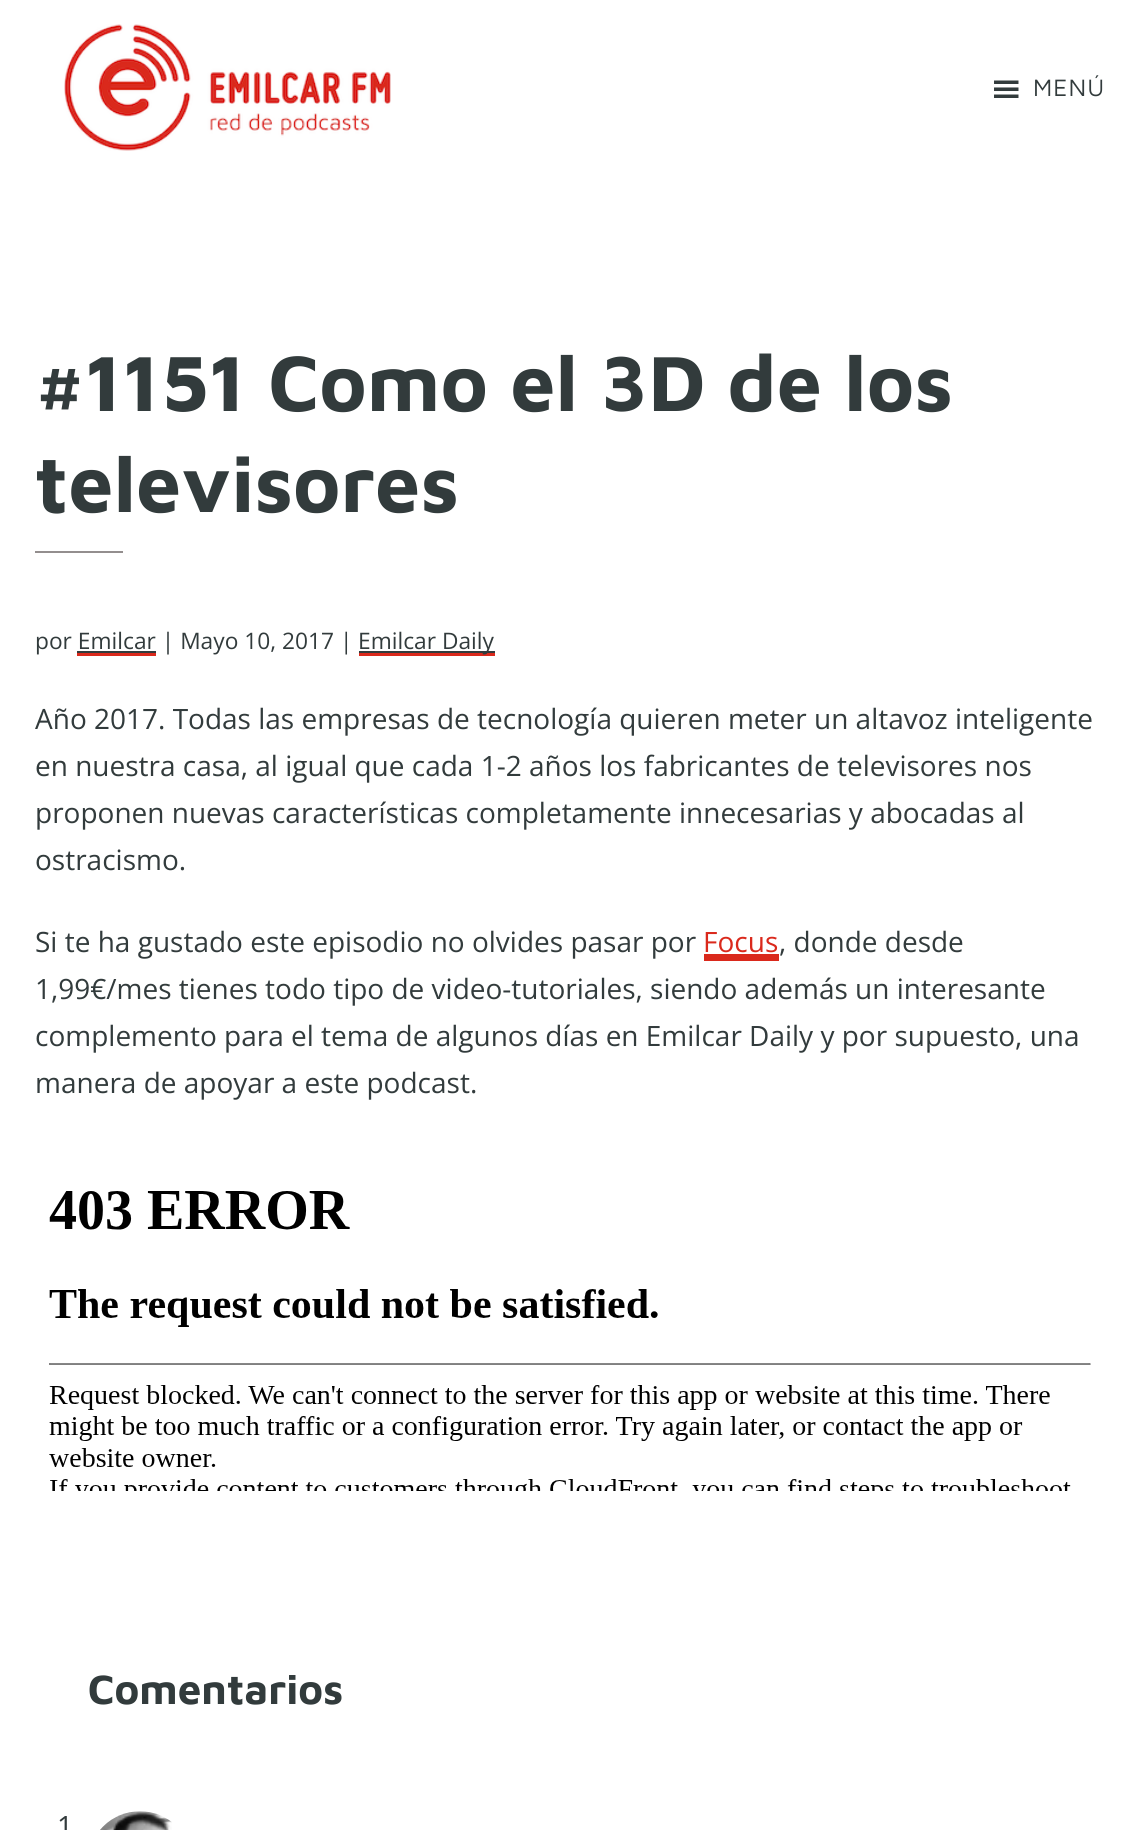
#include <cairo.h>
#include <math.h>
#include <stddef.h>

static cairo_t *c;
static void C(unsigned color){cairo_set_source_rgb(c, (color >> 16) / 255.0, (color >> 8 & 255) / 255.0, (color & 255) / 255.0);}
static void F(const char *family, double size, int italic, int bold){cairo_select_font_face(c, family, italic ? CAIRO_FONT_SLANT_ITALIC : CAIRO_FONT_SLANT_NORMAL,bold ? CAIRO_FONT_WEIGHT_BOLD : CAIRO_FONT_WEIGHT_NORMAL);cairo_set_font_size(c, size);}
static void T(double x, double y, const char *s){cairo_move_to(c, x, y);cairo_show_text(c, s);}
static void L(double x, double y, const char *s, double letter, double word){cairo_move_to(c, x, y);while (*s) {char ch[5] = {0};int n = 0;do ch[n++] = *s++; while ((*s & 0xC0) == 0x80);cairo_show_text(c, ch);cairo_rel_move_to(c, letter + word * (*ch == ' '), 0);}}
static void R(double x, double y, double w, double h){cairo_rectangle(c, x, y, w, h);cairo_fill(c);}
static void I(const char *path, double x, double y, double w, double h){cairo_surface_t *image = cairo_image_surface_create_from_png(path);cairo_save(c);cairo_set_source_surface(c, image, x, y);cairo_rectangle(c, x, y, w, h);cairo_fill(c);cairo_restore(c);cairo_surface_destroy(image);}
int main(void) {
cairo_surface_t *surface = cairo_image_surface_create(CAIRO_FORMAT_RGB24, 1138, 1830);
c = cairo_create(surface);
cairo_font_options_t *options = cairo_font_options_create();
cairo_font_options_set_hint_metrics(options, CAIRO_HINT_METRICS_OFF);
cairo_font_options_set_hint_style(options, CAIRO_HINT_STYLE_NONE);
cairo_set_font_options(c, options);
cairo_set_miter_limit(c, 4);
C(0xffffff);
cairo_paint(c);
I("1.png",64,24,327,127);
I("2.png",994,80,25,18);
F("Maven Pro",24.5,0,0);
C(0x323b3c);
L(1033,96,"MENÚ",1,0);
F("Maven Pro",80.5,0,1);
T(35,411,"#1151 Como el 3D de los");
T(35,512,"televisores");
C(0x938e8e);
R(35,551,88,2);
F("Open Sans",22.75,0,0);
C(0x323b3c);
T(35,649,"por Emilcar | Mayo 10, 2017 |");
C(0xda291c);
R(359,653,136,3);
C(0x323b3c);
R(359,651,136,2);
T(358,649,"Emilcar Daily");
R(77,651,79,2);
C(0xda291c);
R(77,653,79,3);
F("Open Sans",28,0,0);
C(0x323b3c);
T(35,729,"Año 2017. Todas las empresas de tecnología quieren meter un altavoz inteligente");
T(35,776,"en nuestra casa, al igual que cada 1-2 años los fabricantes de televisores nos");
T(35,823,"proponen nuevas características completamente innecesarias y abocadas al");
T(35,870,"ostracismo.");
T(35,952,"Si te ha gustado este episodio no olvides pasar por");
C(0xda291c);
T(703,952,"Focus");
R(704,954,75,7);
C(0x323b3c);
T(779,952,", donde desde");
T(35,999,"1,99€/mes tienes todo tipo de video-tutoriales, siendo además un interesante");
T(35,1046,"complemento para el tema de algunos días en Emilcar Daily y por supuesto, una");
T(35,1093,"manera de apoyar a este podcast.");
I("3.png",49,1191,1042,300);
F("Maven Pro",42,0,1);
T(88,1704,"Comentarios");
F("Open Sans",28,0,0);
T(57,1836,"1");
I("4.png",100,1811,72,19);
cairo_surface_write_to_png(surface, "o.png");
cairo_font_options_destroy(options);
cairo_destroy(c);
cairo_surface_destroy(surface);
return 0;
}
